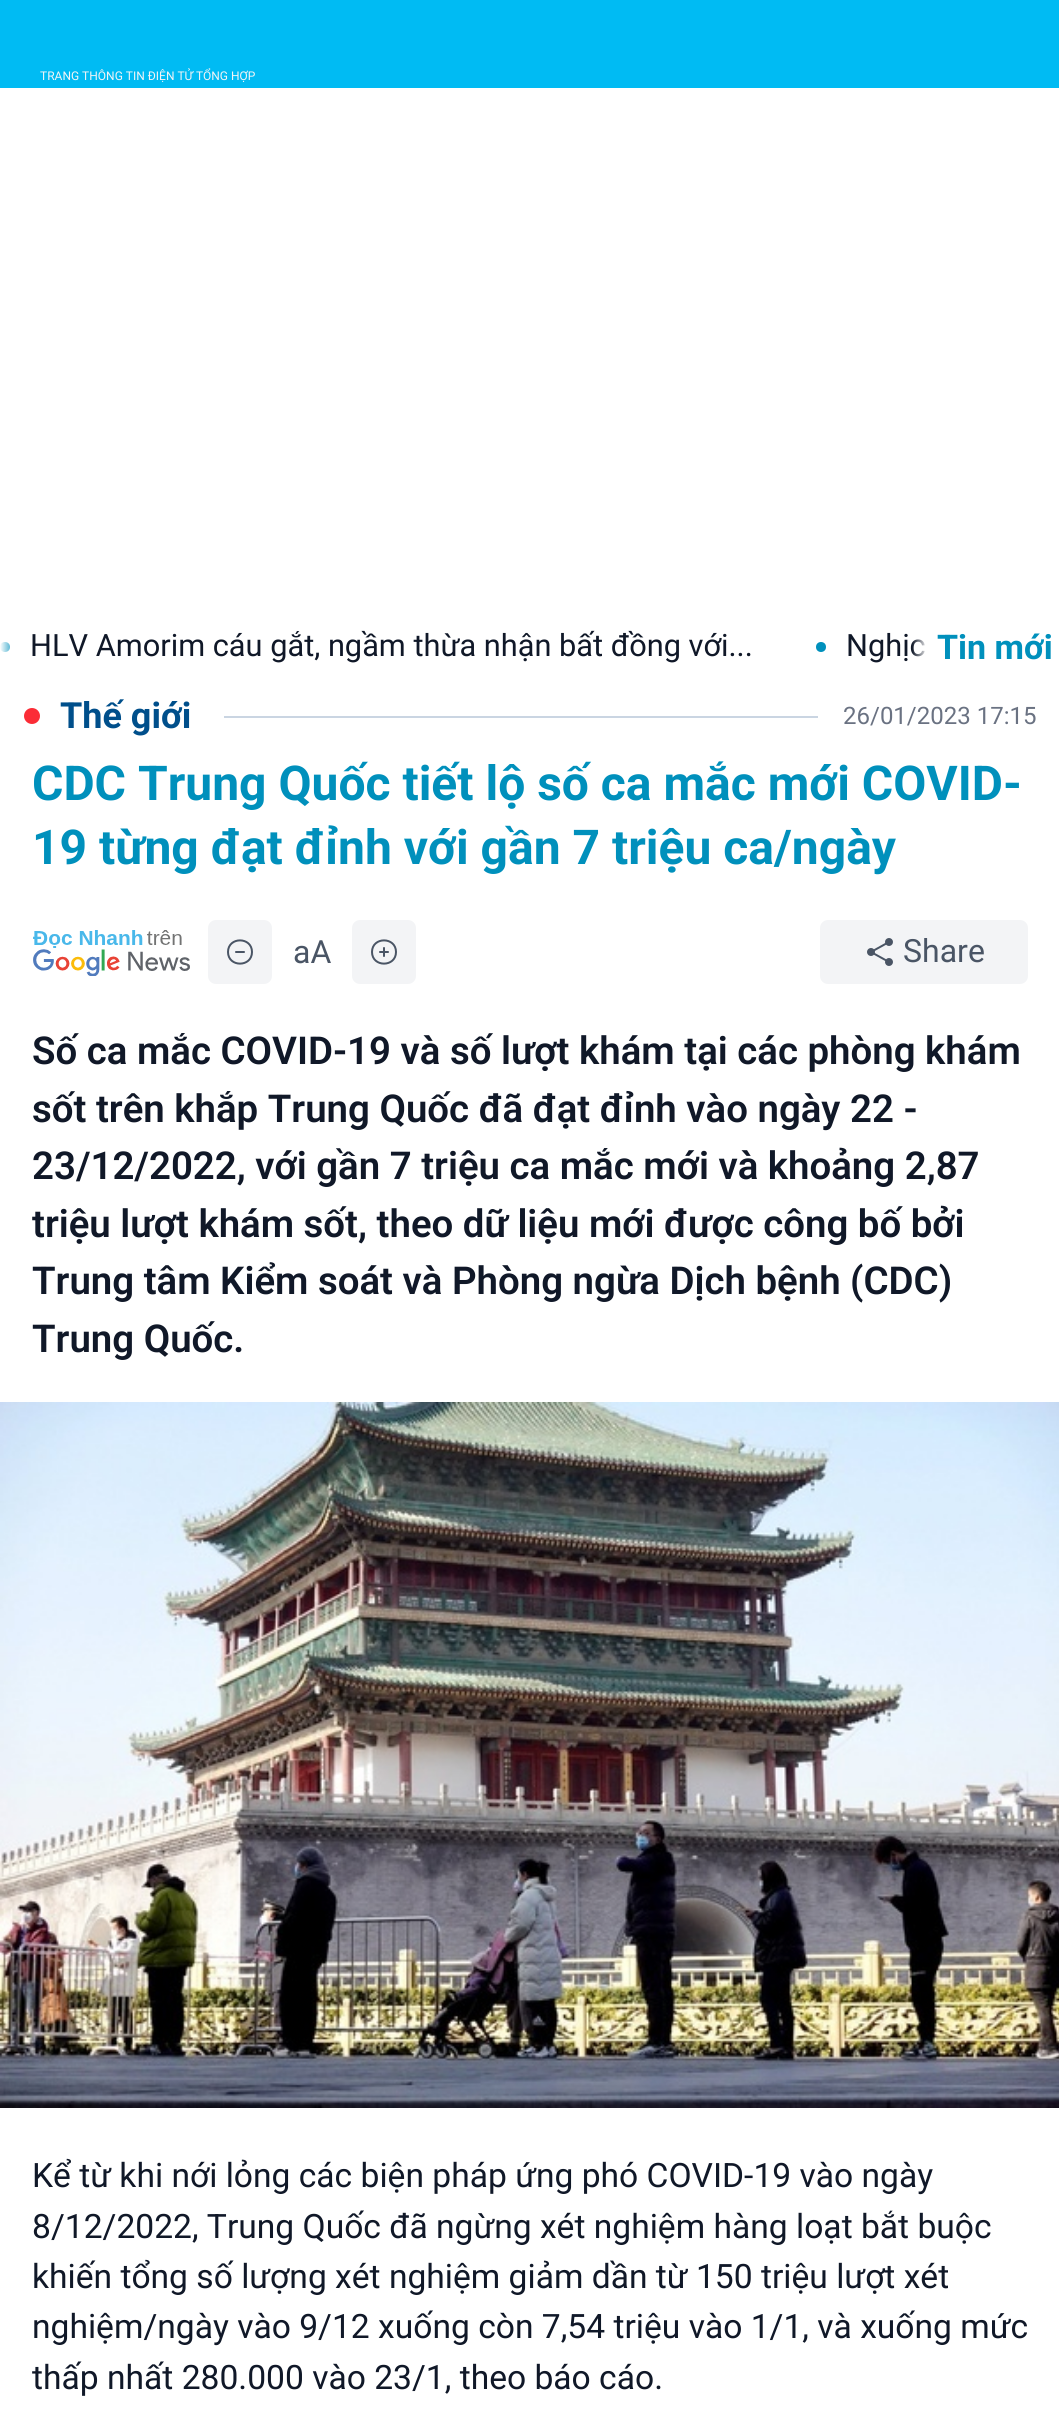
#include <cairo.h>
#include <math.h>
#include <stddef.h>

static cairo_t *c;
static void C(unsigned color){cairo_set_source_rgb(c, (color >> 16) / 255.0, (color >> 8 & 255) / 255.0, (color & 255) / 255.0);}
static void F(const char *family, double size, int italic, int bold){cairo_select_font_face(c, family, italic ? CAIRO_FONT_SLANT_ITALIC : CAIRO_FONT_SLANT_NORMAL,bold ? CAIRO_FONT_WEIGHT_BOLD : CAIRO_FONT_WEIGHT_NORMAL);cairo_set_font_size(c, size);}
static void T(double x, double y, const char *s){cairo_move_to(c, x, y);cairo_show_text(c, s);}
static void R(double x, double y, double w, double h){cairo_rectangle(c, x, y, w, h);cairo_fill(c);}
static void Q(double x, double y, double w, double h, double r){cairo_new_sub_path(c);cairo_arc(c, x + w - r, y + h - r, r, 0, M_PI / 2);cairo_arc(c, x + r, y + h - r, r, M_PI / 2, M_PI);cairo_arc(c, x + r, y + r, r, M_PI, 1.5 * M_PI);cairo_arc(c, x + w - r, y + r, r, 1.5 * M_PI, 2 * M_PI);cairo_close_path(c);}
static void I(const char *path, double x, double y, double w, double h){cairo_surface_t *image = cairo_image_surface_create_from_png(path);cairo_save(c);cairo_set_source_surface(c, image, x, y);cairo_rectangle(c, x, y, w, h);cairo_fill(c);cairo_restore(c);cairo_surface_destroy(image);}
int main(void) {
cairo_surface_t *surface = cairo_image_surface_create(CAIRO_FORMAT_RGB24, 1059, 2425);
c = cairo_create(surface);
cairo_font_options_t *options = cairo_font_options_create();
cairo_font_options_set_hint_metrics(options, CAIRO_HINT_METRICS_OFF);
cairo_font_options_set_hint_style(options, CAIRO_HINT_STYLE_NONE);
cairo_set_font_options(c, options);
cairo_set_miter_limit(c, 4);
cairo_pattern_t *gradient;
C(0xffffff);
cairo_paint(c);
C(0x00bbf3);
R(0,0,1059,88);
F("Roboto",12,0,0);
C(0xf3f4f6);
T(40,80,"TRANG THÔNG TIN ĐIỆN TỬ TỔNG HỢP");
C(0x0090bc);
cairo_new_path(c);
cairo_arc(c,5,647,5,0,2 * M_PI);
cairo_fill(c);
F("Roboto",30.75,0,0);
C(0x101828);
T(30,656,"HLV Amorim cáu gắt, ngầm thừa nhận bất đồng với...");
C(0x0090bc);
cairo_new_path(c);
cairo_arc(c,821,647,5,0,2 * M_PI);
cairo_fill(c);
C(0x101828);
T(846,656,"Nghịc");
gradient = cairo_pattern_create_linear(0,648,16,648);
cairo_pattern_add_color_stop_rgba(gradient,0,1,1,1,1);
cairo_pattern_add_color_stop_rgba(gradient,1,1,1,1,0);
cairo_set_source(c,gradient);
cairo_pattern_destroy(gradient);
R(0,642,10,10);
gradient = cairo_pattern_create_linear(928,648,912,648);
cairo_pattern_add_color_stop_rgba(gradient,0,1,1,1,1);
cairo_pattern_add_color_stop_rgba(gradient,1,1,1,1,0);
cairo_set_source(c,gradient);
cairo_pattern_destroy(gradient);
R(912,639,13,18);
F("Roboto",34,0,1);
C(0x0090bc);
T(937,659,"Tin mới");
C(0xfb2c36);
cairo_new_path(c);
cairo_arc(c,32,716,8,0,2 * M_PI);
cairo_fill(c);
F("Roboto",36,0,1);
C(0x004f8b);
T(60,728,"Thế giới");
C(0xcad5e2);
R(224,716,594,2);
F("Roboto",24,0,0);
C(0x6a7282);
T(843,724,"26/01/2023 17:15");
F("Roboto",48,0,1);
C(0x0090bc);
T(32,800,"CDC Trung Quốc tiết lộ số ca mắc mới COVID-");
T(32,864,"19 từng đạt đỉnh với gần 7 triệu ca/ngày");
I("1.png",33,930,157,46);
C(0xf3f4f6);
Q(208,920,64,64,8);
cairo_fill(c);
cairo_new_path(c);
cairo_move_to(c,244,952);
cairo_line_to(c,236,952);
cairo_move_to(c,252,952);
cairo_curve_to(c,252,967.5,228,967.5,228,952);
cairo_curve_to(c,228,936.5,252,936.5,252,952);
cairo_close_path(c);
C(0x4a5565);
cairo_set_line_cap(c,CAIRO_LINE_CAP_ROUND);
cairo_set_line_join(c,CAIRO_LINE_JOIN_ROUND);
cairo_stroke(c);
F("Roboto",32,0,0);
T(293,963,"aA");
C(0xf3f4f6);
Q(352,920,64,64,8);
cairo_fill(c);
cairo_new_path(c);
cairo_move_to(c,384,948);
cairo_line_to(c,384,956);
cairo_move_to(c,388,952);
cairo_line_to(c,380,952);
cairo_move_to(c,396,952);
cairo_curve_to(c,396,967.5,372,967.5,372,952);
cairo_curve_to(c,372,936.5,396,936.5,396,952);
cairo_close_path(c);
C(0x4a5565);
cairo_stroke(c);
C(0xf3f4f6);
Q(820,920,208,64,8);
cairo_fill(c);
I("2.png",867,938,26,28);
C(0x4a5565);
T(903,962,"Share");
F("Roboto SemiBold",38.4,0,0);
C(0x101828);
T(32,1064,"Số ca mắc COVID-19 và số lượt khám tại các phòng khám");
T(32,1122,"sốt trên khắp Trung Quốc đã đạt đỉnh vào ngày 22 -");
T(32,1179,"23/12/2022, với gần 7 triệu ca mắc mới và khoảng 2,87");
T(32,1237,"triệu lượt khám sốt, theo dữ liệu mới được công bố bởi");
T(32,1294,"Trung tâm Kiểm soát và Phòng ngừa Dịch bệnh (CDC)");
T(32,1352,"Trung Quốc.");
I("3.png",0,1402,1059,706);
F("Roboto",33.6,0,0);
T(32,2187,"Kể từ khi nới lỏng các biện pháp ứng phó COVID-19 vào ngày");
T(32,2238,"8/12/2022, Trung Quốc đã ngừng xét nghiệm hàng loạt bắt buộc");
T(32,2288,"khiến tổng số lượng xét nghiệm giảm dần từ 150 triệu lượt xét");
T(32,2338,"nghiệm/ngày vào 9/12 xuống còn 7,54 triệu vào 1/1, và xuống mức");
T(32,2389,"thấp nhất 280.000 vào 23/1, theo báo cáo.");
cairo_surface_write_to_png(surface, "o.png");
cairo_font_options_destroy(options);
cairo_destroy(c);
cairo_surface_destroy(surface);
return 0;
}
